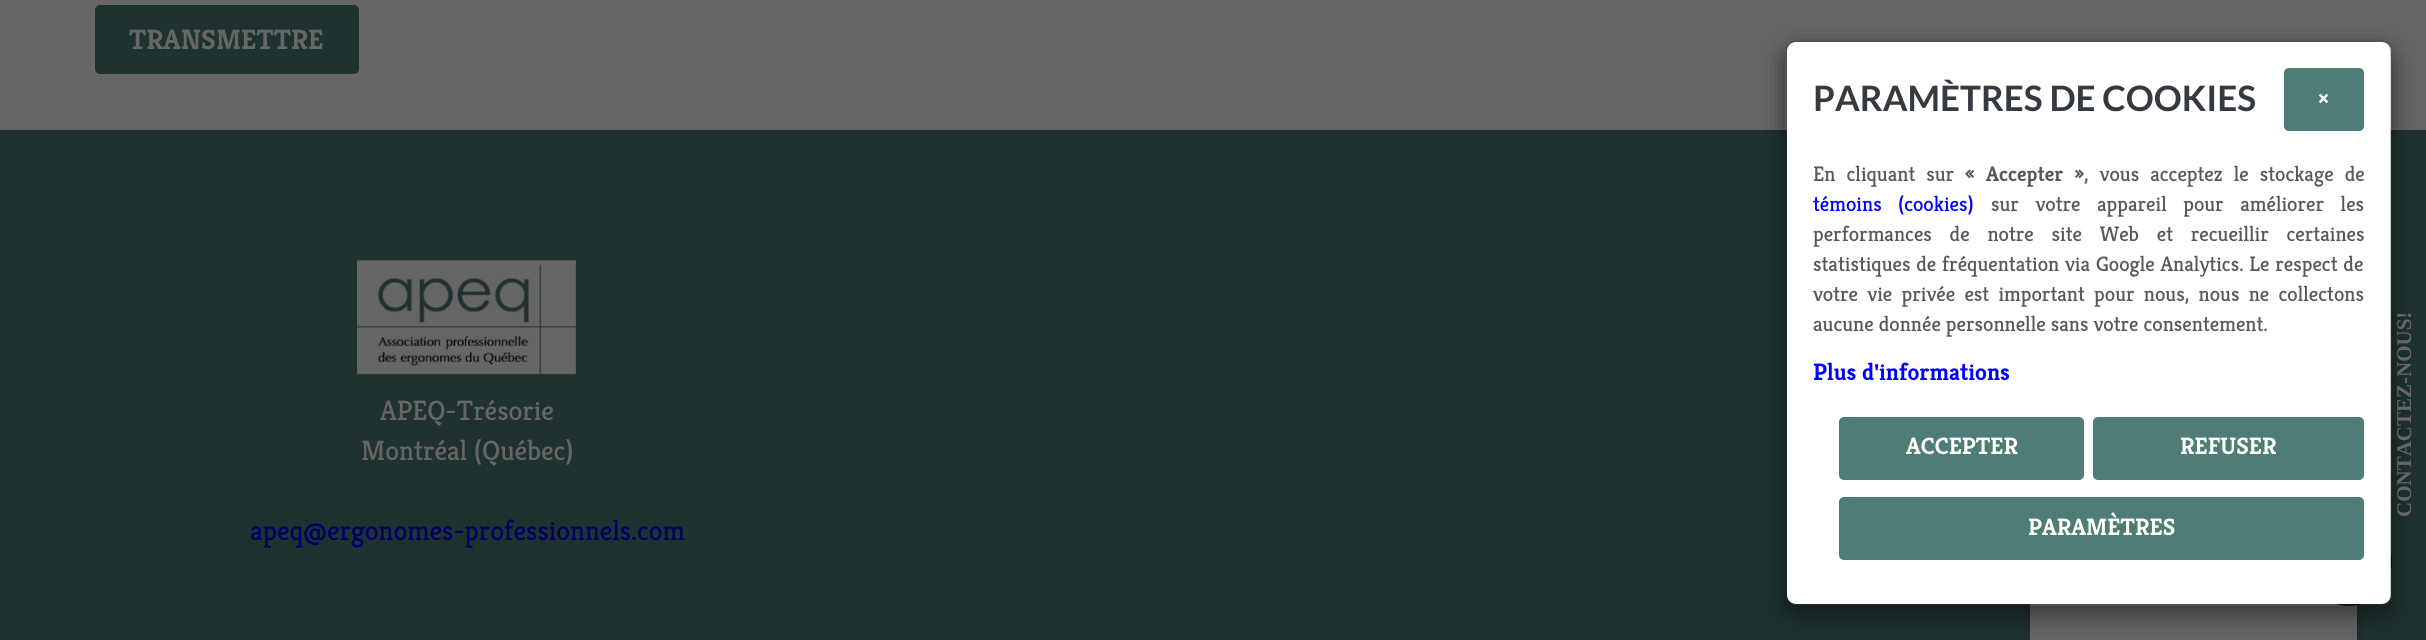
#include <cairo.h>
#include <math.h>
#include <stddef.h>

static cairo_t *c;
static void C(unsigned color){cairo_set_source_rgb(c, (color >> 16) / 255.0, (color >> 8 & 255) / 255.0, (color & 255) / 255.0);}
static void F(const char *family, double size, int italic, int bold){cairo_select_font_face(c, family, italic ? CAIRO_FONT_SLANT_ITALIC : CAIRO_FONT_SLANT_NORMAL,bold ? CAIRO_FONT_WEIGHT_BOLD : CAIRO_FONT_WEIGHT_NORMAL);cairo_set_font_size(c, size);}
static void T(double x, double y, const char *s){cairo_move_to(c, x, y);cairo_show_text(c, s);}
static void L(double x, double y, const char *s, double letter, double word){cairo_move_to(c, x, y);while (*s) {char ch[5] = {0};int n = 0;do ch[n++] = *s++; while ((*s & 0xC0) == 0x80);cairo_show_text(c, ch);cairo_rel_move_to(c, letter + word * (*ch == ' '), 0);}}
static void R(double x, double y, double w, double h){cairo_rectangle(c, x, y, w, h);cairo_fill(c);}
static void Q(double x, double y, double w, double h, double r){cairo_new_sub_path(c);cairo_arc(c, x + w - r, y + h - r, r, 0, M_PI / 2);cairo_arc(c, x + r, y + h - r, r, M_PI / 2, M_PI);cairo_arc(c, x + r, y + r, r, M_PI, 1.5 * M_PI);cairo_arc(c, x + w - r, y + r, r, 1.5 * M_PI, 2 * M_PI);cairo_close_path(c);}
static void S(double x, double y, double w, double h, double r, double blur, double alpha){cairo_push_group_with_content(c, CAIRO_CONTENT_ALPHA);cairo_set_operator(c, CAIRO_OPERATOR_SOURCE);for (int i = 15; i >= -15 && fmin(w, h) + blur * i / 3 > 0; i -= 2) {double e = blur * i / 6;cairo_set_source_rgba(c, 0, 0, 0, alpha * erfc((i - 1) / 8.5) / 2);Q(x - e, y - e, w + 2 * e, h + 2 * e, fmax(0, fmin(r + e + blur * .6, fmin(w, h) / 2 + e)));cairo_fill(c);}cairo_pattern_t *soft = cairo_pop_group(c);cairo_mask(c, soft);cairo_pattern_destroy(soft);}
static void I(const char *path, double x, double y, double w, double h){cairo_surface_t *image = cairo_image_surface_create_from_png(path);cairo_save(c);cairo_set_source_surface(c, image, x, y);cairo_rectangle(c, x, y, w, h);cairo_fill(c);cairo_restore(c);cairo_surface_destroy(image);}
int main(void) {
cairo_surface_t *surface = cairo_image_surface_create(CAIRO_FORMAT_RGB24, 2426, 640);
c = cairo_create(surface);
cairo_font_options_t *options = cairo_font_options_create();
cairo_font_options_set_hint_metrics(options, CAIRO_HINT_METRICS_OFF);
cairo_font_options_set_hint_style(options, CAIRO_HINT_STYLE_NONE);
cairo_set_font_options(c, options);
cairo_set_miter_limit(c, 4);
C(0x666666);
cairo_paint(c);
C(0x1f3230);
Q(95,5,264,69,5);
cairo_fill(c);
F("Kreon",28,0,1);
C(0x666666);
T(129,49,"TRANSMETTRE");
C(0x1f3230);
R(0,130,2426,510);
I("1.png",357,260,219,115);
F("Kreon",28,0,0);
C(0x666666);
T(380,420,"APEQ-Trésorie");
T(361,460,"Montréal (Québec)");
C(0x000066);
T(250,540,"apeq@ergonomes-professionnels.com");
C(0x000000);
S(2030,581,327,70,0,5,.23);
C(0x666666);
R(2030,604,327,36);
cairo_set_source_rgba(c,0,0,0,0.8);
Q(2305,518,87,88,43.5);
cairo_fill(c);
cairo_save(c);
cairo_set_fill_rule(c,CAIRO_FILL_RULE_EVEN_ODD);
cairo_new_path(c);
cairo_move_to(c,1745,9);
cairo_line_to(c,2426,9);
cairo_line_to(c,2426,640);
cairo_line_to(c,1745,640);
cairo_close_path(c);
cairo_move_to(c,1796,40);
cairo_line_to(c,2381,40);
cairo_curve_to(c,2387,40,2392,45,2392,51);
cairo_line_to(c,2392,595);
cairo_curve_to(c,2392,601,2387,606,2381,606);
cairo_line_to(c,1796,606);
cairo_curve_to(c,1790,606,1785,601,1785,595);
cairo_line_to(c,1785,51);
cairo_curve_to(c,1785,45,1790,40,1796,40);
cairo_close_path(c);
cairo_clip(c);
C(0x000000);
S(1785,49,607,565,11,13,.5);
cairo_restore(c);
C(0xffffff);
Q(1787,42,604,562,9);
cairo_fill(c);
Q(1786,41,605,564,10);
cairo_set_source_rgba(c,0,0,0,0.2);
cairo_stroke(c);
F("Lato",35,0,1);
C(0x343a40);
T(1813,111,"PARAMÈTRES DE COOKIES");
C(0x4e7d77);
Q(2284,68,80,63,5);
cairo_fill(c);
F("Kreon",23.75,0,1);
C(0xffffff);
T(2318,107,"×");
F("Kreon",21,0,0);
C(0x57585a);
L(1813,181,"En cliquant sur",0,6);
F("Kreon",21,0,1);
L(1965,181,"« Accepter »",0,6);
F("Kreon",21,0,0);
L(2084,181,", vous acceptez le stockage de",0,6);
C(0x0000ff);
L(1813,211,"témoins (cookies)",0,11.5);
C(0x57585a);
L(1991,211,"sur votre appareil pour améliorer les",0,11.5);
L(1813,241,"performances de notre site Web et recueillir certaines",0,12.75);
L(1813,271,"statistiques de fréquentation via Google Analytics. Le respect de",0,.75);
L(1813,301,"votre vie privée est important pour nous, nous ne collectons",0,4.25);
T(1813,331,"aucune donnée personnelle sans votre consentement.");
F("Kreon",23.75,0,1);
C(0x0000ff);
T(1813,380,"Plus d'informations");
C(0x4e7d77);
Q(1839,417,245,63,5);
cairo_fill(c);
C(0xffffff);
T(1906,454,"ACCEPTER");
C(0x4e7d77);
Q(2093,417,271,63,5);
cairo_fill(c);
C(0xffffff);
T(2180,454,"REFUSER");
C(0x4e7d77);
Q(1839,497,525,63,5);
cairo_fill(c);
C(0xffffff);
T(2028,535,"PARAMÈTRES");
F("Liberation Serif",21,0,1);
C(0x666666);
cairo_save(c);
cairo_translate(c,2411,517);
cairo_rotate(c,-90 * M_PI / 180);
T(0,0,"CONTACTEZ-NOUS!");
cairo_restore(c);
cairo_surface_write_to_png(surface, "o.png");
cairo_font_options_destroy(options);
cairo_destroy(c);
cairo_surface_destroy(surface);
return 0;
}
